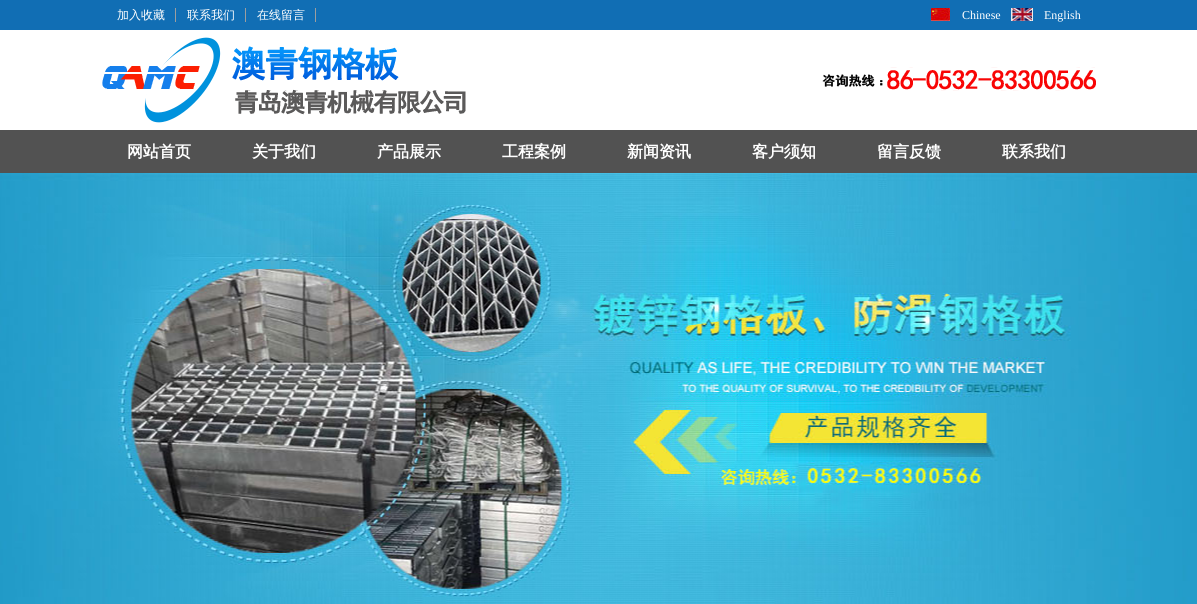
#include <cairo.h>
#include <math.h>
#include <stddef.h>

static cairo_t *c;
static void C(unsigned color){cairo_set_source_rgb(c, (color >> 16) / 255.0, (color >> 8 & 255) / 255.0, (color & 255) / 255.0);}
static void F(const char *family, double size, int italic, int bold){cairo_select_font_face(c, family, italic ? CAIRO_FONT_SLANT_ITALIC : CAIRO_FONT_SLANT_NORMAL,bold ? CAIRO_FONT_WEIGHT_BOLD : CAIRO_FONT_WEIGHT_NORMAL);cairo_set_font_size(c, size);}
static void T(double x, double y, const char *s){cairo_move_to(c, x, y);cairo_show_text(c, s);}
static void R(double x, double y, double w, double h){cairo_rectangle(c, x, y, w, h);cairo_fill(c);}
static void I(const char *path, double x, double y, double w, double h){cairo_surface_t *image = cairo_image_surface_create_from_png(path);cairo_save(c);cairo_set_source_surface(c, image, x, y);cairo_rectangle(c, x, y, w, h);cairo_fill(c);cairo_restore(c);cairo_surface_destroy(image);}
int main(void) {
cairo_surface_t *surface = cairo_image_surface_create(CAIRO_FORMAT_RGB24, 1197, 604);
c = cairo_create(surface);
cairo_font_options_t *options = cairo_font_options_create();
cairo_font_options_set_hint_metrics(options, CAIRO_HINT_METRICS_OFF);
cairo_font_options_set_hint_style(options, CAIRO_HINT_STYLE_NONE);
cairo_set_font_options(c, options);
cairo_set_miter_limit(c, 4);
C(0xffffff);
cairo_paint(c);
C(0x116eb4);
R(0,0,1197,30);
F("WenQuanYi Zen Hei Medium",12,0,0);
C(0xffffff);
T(117,19,"加入收藏");
C(0x9d9e9f);
R(175,8,1,14);
C(0xffffff);
T(187,19,"联系我们");
C(0x9d9e9f);
R(245,8,1,14);
C(0xffffff);
T(257,19,"在线留言");
C(0x9d9e9f);
R(315,8,1,14);
I("1.png",931,8,19,13);
F("Liberation Serif",12,0,0);
C(0xffffff);
T(962,19,"Chinese");
I("2.png",1011,8,22,13);
T(1044,19,"English");
I("3.png",102,37,364,86);
I("4.png",822,67,274,24);
C(0x525252);
R(0,130,1197,43);
F("WenQuanYi Zen Hei",16,0,1);
C(0xffffff);
T(127,157,"网站首页");
T(252,157,"关于我们");
T(377,157,"产品展示");
T(502,157,"工程案例");
T(627,157,"新闻资讯");
T(752,157,"客户须知");
T(877,157,"留言反馈");
T(1002,157,"联系我们");
I("5.png",0,173,1197,431);
cairo_surface_write_to_png(surface, "o.png");
cairo_font_options_destroy(options);
cairo_destroy(c);
cairo_surface_destroy(surface);
return 0;
}
